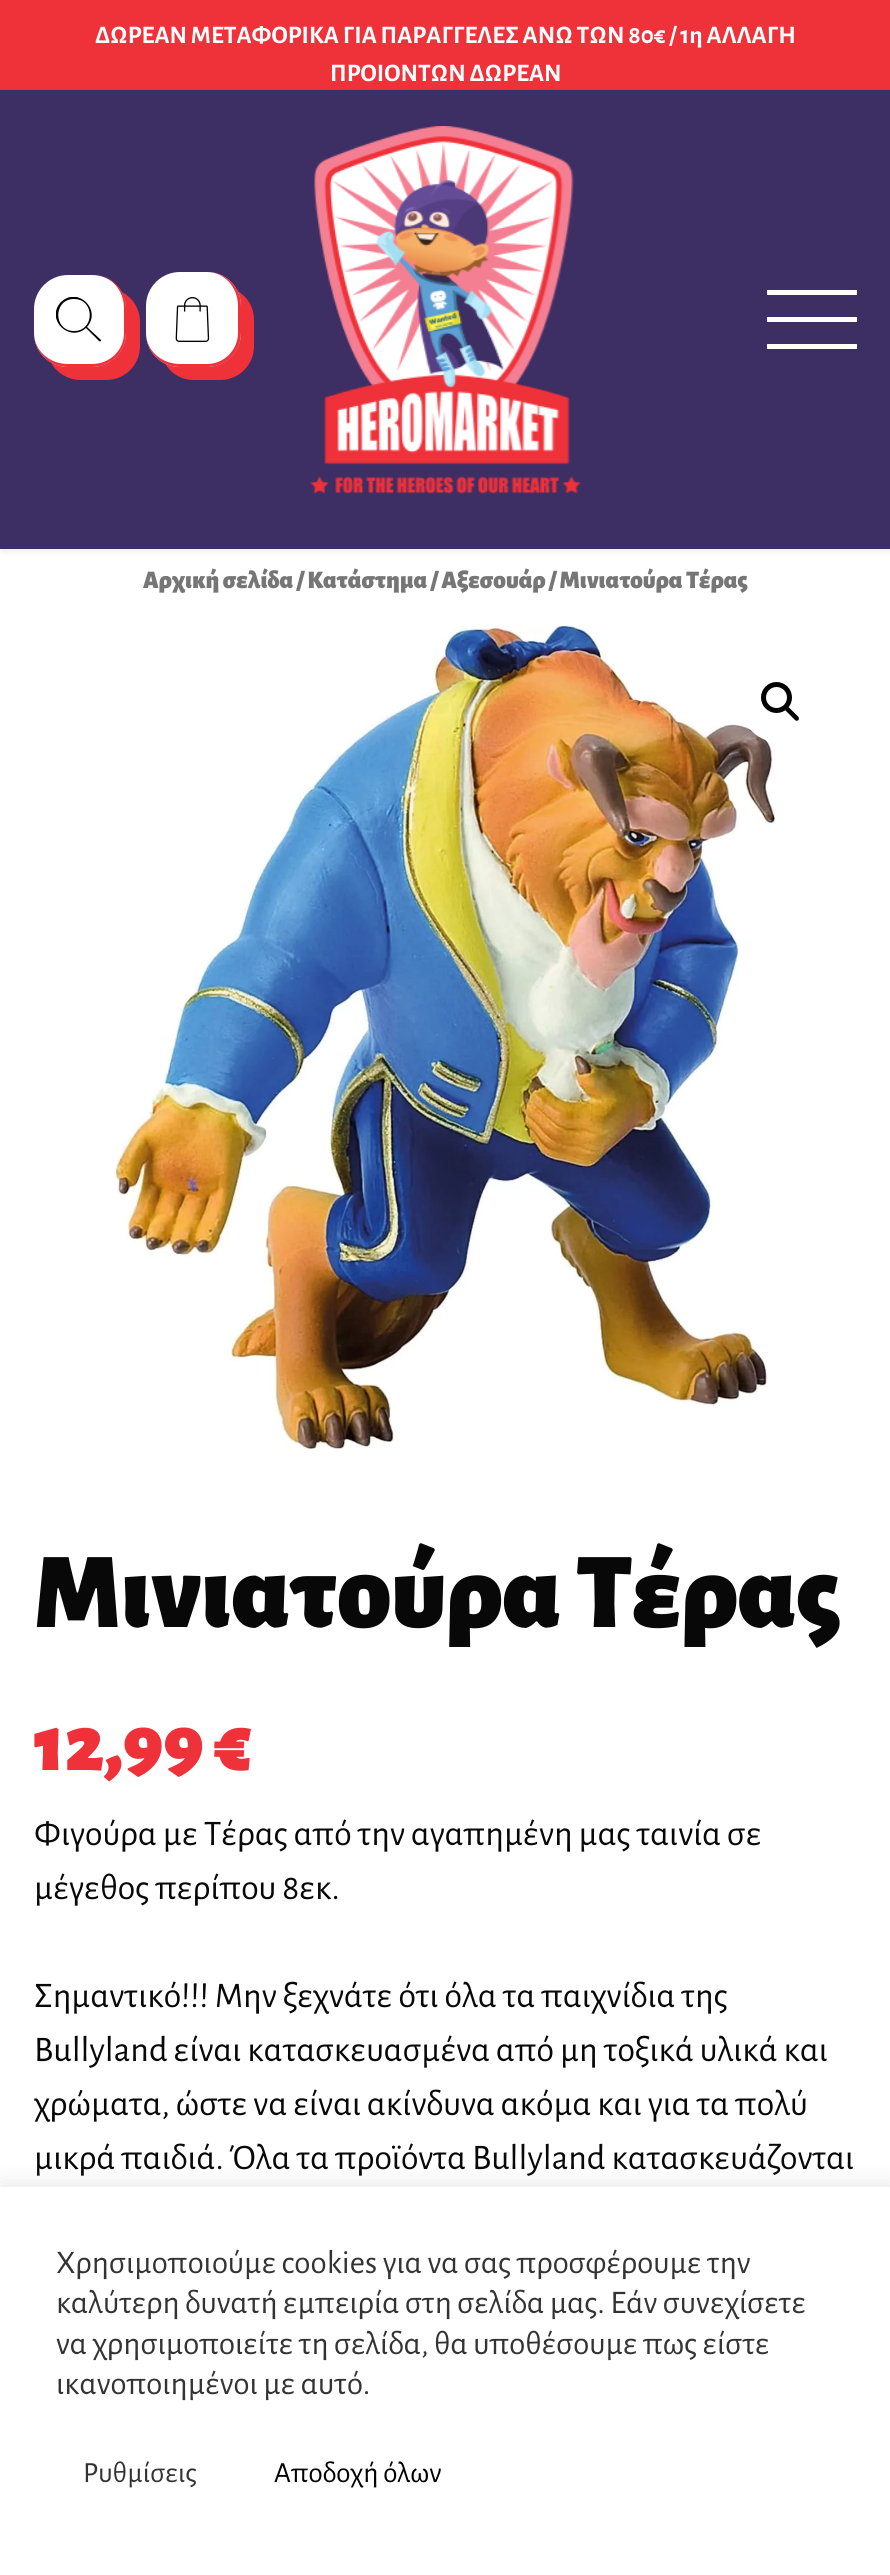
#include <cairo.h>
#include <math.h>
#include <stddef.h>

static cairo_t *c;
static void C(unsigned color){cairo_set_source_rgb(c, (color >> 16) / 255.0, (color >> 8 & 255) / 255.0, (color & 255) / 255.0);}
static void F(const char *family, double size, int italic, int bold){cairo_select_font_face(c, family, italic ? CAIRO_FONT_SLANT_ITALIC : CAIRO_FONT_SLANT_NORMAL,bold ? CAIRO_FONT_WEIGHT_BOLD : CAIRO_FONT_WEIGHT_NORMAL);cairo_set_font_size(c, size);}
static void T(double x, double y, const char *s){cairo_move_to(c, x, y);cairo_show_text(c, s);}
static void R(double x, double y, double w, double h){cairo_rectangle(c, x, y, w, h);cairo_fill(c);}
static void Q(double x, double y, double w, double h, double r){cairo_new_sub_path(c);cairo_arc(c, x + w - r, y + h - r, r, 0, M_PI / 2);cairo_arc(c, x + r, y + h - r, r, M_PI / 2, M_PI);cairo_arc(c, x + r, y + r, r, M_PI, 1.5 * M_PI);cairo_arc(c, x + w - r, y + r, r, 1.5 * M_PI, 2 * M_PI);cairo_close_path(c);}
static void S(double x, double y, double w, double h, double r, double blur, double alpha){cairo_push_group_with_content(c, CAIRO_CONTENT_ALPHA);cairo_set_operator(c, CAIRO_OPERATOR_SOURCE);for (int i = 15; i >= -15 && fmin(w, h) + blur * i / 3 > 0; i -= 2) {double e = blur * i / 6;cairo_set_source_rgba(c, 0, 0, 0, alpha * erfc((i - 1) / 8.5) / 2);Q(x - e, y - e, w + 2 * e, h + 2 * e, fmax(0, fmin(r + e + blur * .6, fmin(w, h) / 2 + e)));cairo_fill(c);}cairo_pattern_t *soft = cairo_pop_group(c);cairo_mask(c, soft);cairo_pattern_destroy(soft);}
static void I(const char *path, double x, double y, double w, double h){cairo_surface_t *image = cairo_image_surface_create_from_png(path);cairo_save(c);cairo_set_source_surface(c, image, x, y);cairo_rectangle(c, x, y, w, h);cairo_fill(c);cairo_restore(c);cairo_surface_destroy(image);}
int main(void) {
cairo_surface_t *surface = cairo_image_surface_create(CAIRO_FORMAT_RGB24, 890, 2575);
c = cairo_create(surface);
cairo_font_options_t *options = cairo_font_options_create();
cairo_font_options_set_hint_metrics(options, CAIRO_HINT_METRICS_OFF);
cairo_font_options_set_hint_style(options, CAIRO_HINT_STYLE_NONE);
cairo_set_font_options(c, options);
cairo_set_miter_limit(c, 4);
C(0xffffff);
cairo_paint(c);
C(0xef323a);
R(0,0,890,90);
F("Alegreya Sans",25.2,0,1);
C(0xffffff);
T(95,43,"ΔΩΡΕΑΝ ΜΕΤΑΦΟΡΙΚΑ ΓΙΑ ΠΑΡΑΓΓΕΛΕΣ ΑΝΩ ΤΩΝ 80€ / 1η ΑΛΛΑΓΗ");
T(330,81,"ΠΡΟΙΟΝΤΩΝ ΔΩΡΕΑΝ");
C(0x000000);
S(2,92,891,459,0,3.5,.08);
C(0x3d2e64);
R(0,90,890,459);
C(0xef323a);
cairo_new_path(c);
cairo_move_to(c,51,363);
cairo_curve_to(c,57,373,68,380,81,380);
cairo_line_to(c,106,380);
cairo_curve_to(c,125,380,140,365,140,346);
cairo_line_to(c,140,322);
cairo_curve_to(c,140,309,133,298,122,292);
cairo_curve_to(c,124,297,126,302,126,308);
cairo_line_to(c,126,333);
cairo_curve_to(c,126,352,111,367,92,367);
cairo_line_to(c,68,367);
cairo_curve_to(c,62,367,56,365,51,363);
cairo_close_path(c);
cairo_fill(c);
C(0xffffff);
Q(34,275,92,92,34);
cairo_fill(c);
C(0xef323a);
cairo_set_fill_rule(c,CAIRO_FILL_RULE_EVEN_ODD);
cairo_new_path(c);
cairo_move_to(c,68,274);
cairo_line_to(c,92,274);
cairo_curve_to(c,111,274,126,290,126,308);
cairo_line_to(c,126,333);
cairo_curve_to(c,126,352,111,367,92,367);
cairo_line_to(c,68,367);
cairo_curve_to(c,49,367,34,352,34,333);
cairo_line_to(c,34,308);
cairo_curve_to(c,34,290,49,274,68,274);
cairo_close_path(c);
cairo_move_to(c,68,274);
cairo_line_to(c,92,274);
cairo_curve_to(c,110,274,124,290,124,308);
cairo_line_to(c,124,333);
cairo_curve_to(c,124,350,110,364,92,364);
cairo_line_to(c,68,364);
cairo_curve_to(c,49,364,34,350,34,333);
cairo_line_to(c,34,308);
cairo_curve_to(c,34,290,49,274,68,274);
cairo_close_path(c);
cairo_fill(c);
cairo_save(c);
cairo_set_fill_rule(c,CAIRO_FILL_RULE_WINDING);
cairo_rectangle(c,56,297,45,45);
cairo_clip(c);
C(0x000000);
cairo_new_path(c);
cairo_move_to(c,101,340);
cairo_line_to(c,87,327);
cairo_curve_to(c,102,310,78,286,61,302);
cairo_curve_to(c,45,319,69,343,86,328);
cairo_line_to(c,99,341);
cairo_curve_to(c,100,342,102,341,101,340);
cairo_close_path(c);
cairo_move_to(c,74,331);
cairo_curve_to(c,53,331,53,299,74,299);
cairo_curve_to(c,95,299,95,331,74,331);
cairo_close_path(c);
cairo_fill(c);
cairo_restore(c);
cairo_set_fill_rule(c,CAIRO_FILL_RULE_WINDING);
cairo_new_path(c);
cairo_move_to(c,165,363);
cairo_curve_to(c,170,373,181,380,194,380);
cairo_line_to(c,220,380);
cairo_curve_to(c,239,380,254,365,254,346);
cairo_line_to(c,254,320);
cairo_curve_to(c,254,307,247,296,237,291);
cairo_curve_to(c,239,295,241,300,241,306);
cairo_line_to(c,241,333);
cairo_curve_to(c,241,352,226,367,207,367);
cairo_line_to(c,180,367);
cairo_curve_to(c,174,367,169,365,165,363);
cairo_close_path(c);
cairo_fill(c);
C(0xffffff);
Q(146,272,95,95,34);
cairo_fill(c);
C(0xef323a);
cairo_set_fill_rule(c,CAIRO_FILL_RULE_EVEN_ODD);
cairo_new_path(c);
cairo_move_to(c,180,272);
cairo_line_to(c,207,272);
cairo_curve_to(c,226,272,241,287,241,306);
cairo_line_to(c,241,333);
cairo_curve_to(c,241,352,226,367,207,367);
cairo_line_to(c,180,367);
cairo_curve_to(c,161,367,146,352,146,333);
cairo_line_to(c,146,306);
cairo_curve_to(c,146,287,161,272,180,272);
cairo_close_path(c);
cairo_move_to(c,180,272);
cairo_line_to(c,207,272);
cairo_curve_to(c,224,272,238,287,238,306);
cairo_line_to(c,238,333);
cairo_curve_to(c,238,350,224,364,207,364);
cairo_line_to(c,180,364);
cairo_curve_to(c,161,364,146,350,146,333);
cairo_line_to(c,146,306);
cairo_curve_to(c,146,287,161,272,180,272);
cairo_close_path(c);
cairo_fill(c);
I("1.png",175,297,35,45);
I("2.png",310,126,271,368);
C(0xffffff);
R(767,290,90,5);
R(767,317,90,5);
R(767,344,90,5);
F("Alegreya Sans Black",25.2,0,0);
C(0x767676);
T(143,588,"Αρχική σελίδα / Κατάστημα / Αξεσουάρ / Μινιατούρα Τέρας");
I("3.png",114,625,661,824);
C(0xffffff);
cairo_arc(c,780.5,702.5,40.5,0,2 * M_PI);
cairo_fill(c);
cairo_arc(c,776.5,697.5,13,0,2 * M_PI);
C(0x000000);
cairo_set_line_width(c,5);
cairo_stroke(c);
cairo_set_fill_rule(c,CAIRO_FILL_RULE_WINDING);
cairo_new_path(c);
cairo_move_to(c,785.5,707.5);
cairo_curve_to(c,786.5,706.5,788,706.5,789,707.5);
cairo_line_to(c,798.5,717);
cairo_curve_to(c,799,718,799,719,798.5,720);
cairo_curve_to(c,797.5,721,796,721,795,720);
cairo_line_to(c,785.5,710.5);
cairo_curve_to(c,785,709.5,785,708,785.5,707.5);
cairo_close_path(c);
cairo_fill(c);
F("Alegreya Sans Black",108,0,0);
C(0x080808);
T(34,1627,"Μινιατούρα Τέρας");
F("Alegreya Sans Black",81,0,0);
C(0xef323a);
T(34,1770,"12,99 €");
F("Alegreya Sans",36,0,0);
C(0x080808);
T(34,1845,"Φιγούρα με Τέρας από την αγαπημένη μας ταινία σε");
T(34,1899,"μέγεθος περίπου 8εκ.");
T(34,2007,"Σημαντικό!!! Μην ξεχνάτε ότι όλα τα παιχνίδια της");
T(34,2061,"Bullyland είναι κατασκευασμένα από μη τοξικά υλικά και");
T(34,2115,"χρώματα, ώστε να είναι ακίνδυνα ακόμα και για τα πολύ");
T(34,2169,"μικρά παιδιά. Όλα τα προϊόντα Bullyland κατασκευάζονται");
C(0xacabab);
S(0,2185,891,389,0,11,.3);
C(0xffffff);
R(0,2187,890,388);
F("Alegreya Sans",33,0,0);
C(0x333333);
T(56,2273,"Χρησιμοποιούμε cookies για να σας προσφέρουμε την");
T(56,2313,"καλύτερη δυνατή εμπειρία στη σελίδα μας. Εάν συνεχίσετε");
T(56,2354,"να χρησιμοποιείτε τη σελίδα, θα υποθέσουμε πως είστε");
T(56,2394,"ικανοποιημένοι με αυτό.");
F("Alegreya Sans",29.25,0,0);
T(83,2482,"Ρυθμίσεις");
C(0x000000);
T(274,2482,"Αποδοχή όλων");
cairo_surface_write_to_png(surface, "o.png");
cairo_font_options_destroy(options);
cairo_destroy(c);
cairo_surface_destroy(surface);
return 0;
}
